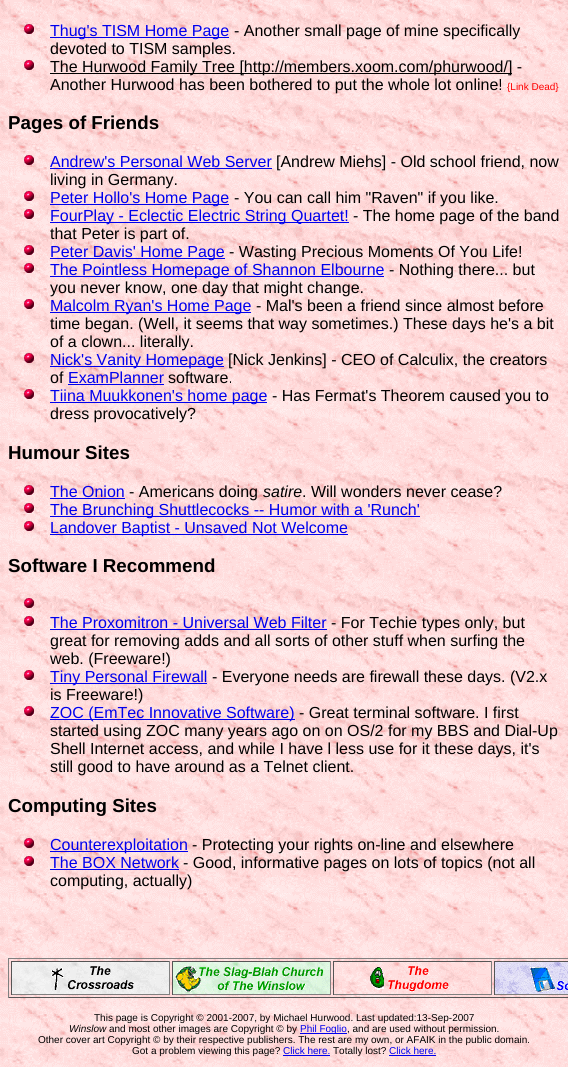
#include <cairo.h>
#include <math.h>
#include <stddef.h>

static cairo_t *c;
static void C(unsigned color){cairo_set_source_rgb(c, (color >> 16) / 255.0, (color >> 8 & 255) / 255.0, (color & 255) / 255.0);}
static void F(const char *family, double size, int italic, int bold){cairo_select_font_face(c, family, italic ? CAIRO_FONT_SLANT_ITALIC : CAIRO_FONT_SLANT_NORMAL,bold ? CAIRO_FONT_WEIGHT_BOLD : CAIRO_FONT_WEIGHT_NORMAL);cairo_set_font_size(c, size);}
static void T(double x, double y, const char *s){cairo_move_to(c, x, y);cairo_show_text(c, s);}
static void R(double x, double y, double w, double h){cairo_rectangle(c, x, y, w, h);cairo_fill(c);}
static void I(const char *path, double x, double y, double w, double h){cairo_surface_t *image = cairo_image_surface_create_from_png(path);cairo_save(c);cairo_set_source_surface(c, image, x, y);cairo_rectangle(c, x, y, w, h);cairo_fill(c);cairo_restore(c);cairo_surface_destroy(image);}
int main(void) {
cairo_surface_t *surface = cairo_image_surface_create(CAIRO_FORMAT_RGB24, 568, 1067);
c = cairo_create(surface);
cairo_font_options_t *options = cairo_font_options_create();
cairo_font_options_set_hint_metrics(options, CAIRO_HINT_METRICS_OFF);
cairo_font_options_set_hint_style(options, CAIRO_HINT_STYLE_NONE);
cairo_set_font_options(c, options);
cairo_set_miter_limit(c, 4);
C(0xffffff);
cairo_paint(c);
I("1.png",0,0,568,1067);
I("2.png",24,24,10,10);
C(0x0000ee);
R(50,37,179,1);
F("Liberation Sans",16,0,0);
T(50,36,"Thug's TISM Home Page");
C(0x000000);
T(234,36,"- Another small page of mine specifically");
T(50,54,"devoted to TISM samples.");
I("3.png",24,60,10,10);
R(50,73,462,1);
T(50,72,"The Hurwood Family Tree [http://members.xoom.com/phurwood/] -");
T(50,90,"Another Hurwood has been bothered to put the whole lot online!");
F("Liberation Sans",10,0,0);
C(0xff0000);
T(507,90,"{Link Dead}");
F("Liberation Sans",18.75,0,1);
C(0x000000);
T(8,129,"Pages of Friends");
I("4.png",24,155,10,10);
F("Liberation Sans",16,0,0);
C(0x0000ee);
T(50,167,"Andrew's Personal Web Server");
R(50,168,222,1);
C(0x000000);
T(276,167,"[Andrew Miehs] - Old school friend, now");
T(50,185,"living in Germany.");
I("5.png",24,191,10,10);
C(0x0000ee);
R(50,204,179,1);
T(50,203,"Peter Hollo's Home Page");
C(0x000000);
T(234,203,"- You can call him \"Raven\" if you like.");
I("6.png",24,209,10,10);
C(0x0000ee);
R(50,222,299,1);
T(50,221,"FourPlay - Eclectic Electric String Quartet!");
C(0x000000);
T(353,221,"- The home page of the band");
T(50,239,"that Peter is part of.");
I("7.png",24,245,10,10);
C(0x0000ee);
R(50,258,175,1);
T(50,257,"Peter Davis' Home Page");
C(0x000000);
T(229,257,"- Wasting Precious Moments Of You Life!");
I("8.png",24,263,10,10);
C(0x0000ee);
R(50,276,334,1);
T(50,275,"The Pointless Homepage of Shannon Elbourne");
C(0x000000);
T(389,275,"- Nothing there... but");
T(50,293,"you never know, one day that might change.");
I("9.png",24,299,10,10);
C(0x0000ee);
R(50,312,201,1);
T(50,311,"Malcolm Ryan's Home Page");
C(0x000000);
T(256,311,"- Mal's been a friend since almost before");
T(50,329,"time began. (Well, it seems that way sometimes.) These days he's a bit");
T(50,347,"of a clown... literally.");
I("10.png",24,353,10,10);
C(0x0000ee);
R(50,366,174,1);
T(50,365,"Nick's Vanity Homepage");
C(0x000000);
T(228,365,"[Nick Jenkins] - CEO of Calculix, the creators");
T(50,383,"of");
C(0x0000ee);
T(68,383,"ExamPlanner");
R(68,384,96,1);
C(0x000000);
T(168,383,"software.");
I("11.png",24,389,10,10);
C(0x0000ee);
R(50,402,217,1);
T(50,401,"Tiina Muukkonen's home page");
C(0x000000);
T(272,401,"- Has Fermat's Theorem caused you to");
T(50,419,"dress provocatively?");
F("Liberation Sans",18.75,0,1);
T(8,459,"Humour Sites");
I("12.png",24,485,10,10);
F("Liberation Sans",16,0,0);
C(0x0000ee);
T(50,497,"The Onion");
R(50,498,75,1);
C(0x000000);
T(129,497,"- Americans doing");
F("Liberation Sans",16,1,0);
T(263,497,"satire");
F("Liberation Sans",16,0,0);
T(302,497,". Will wonders never cease?");
I("13.png",24,503,10,10);
C(0x0000ee);
R(50,516,370,1);
T(50,515,"The Brunching Shuttlecocks -- Humor with a 'Runch'");
I("14.png",24,521,10,10);
R(50,534,298,1);
T(50,533,"Landover Baptist - Unsaved Not Welcome");
F("Liberation Sans",18.75,0,1);
C(0x000000);
T(8,572,"Software I Recommend");
I("15.png",24,598,10,10);
I("16.png",24,616,10,10);
F("Liberation Sans",16,0,0);
C(0x0000ee);
T(50,628,"The Proxomitron - Universal Web Filter");
R(50,629,277,1);
C(0x000000);
T(331,628,"- For Techie types only, but");
T(50,646,"great for removing adds and all sorts of other stuff when surfing the");
T(50,664,"web. (Freeware!)");
I("17.png",24,670,10,10);
C(0x0000ee);
R(50,683,157,1);
T(50,682,"Tiny Personal Firewall");
C(0x000000);
T(212,682,"- Everyone needs are firewall these days. (V2.x");
T(50,700,"is Freeware!)");
I("18.png",24,706,10,10);
C(0x0000ee);
R(50,719,245,1);
T(50,718,"ZOC (EmTec Innovative Software)");
C(0x000000);
T(299,718,"- Great terminal software. I first");
T(50,736,"started using ZOC many years ago on on OS/2 for my BBS and Dial-Up");
T(50,754,"Shell Internet access, and while I have l less use for it these days, it's");
T(50,772,"still good to have around as a Telnet client.");
F("Liberation Sans",18.75,0,1);
T(8,812,"Computing Sites");
I("19.png",24,838,10,10);
C(0x0000ee);
R(50,851,138,1);
F("Liberation Sans",16,0,0);
T(50,850,"Counterexploitation");
C(0x000000);
T(192,850,"- Protecting your rights on-line and elsewhere");
I("20.png",24,856,10,10);
C(0x0000ee);
T(50,868,"The BOX Network");
R(50,869,129,1);
C(0x000000);
T(183,868,"- Good, informative pages on lots of topics (not all");
T(50,886,"computing, actually)");
C(0x808080);
R(8,958,560,1);
C(0x555555);
R(8,997,560,1);
C(0x808080);
R(8,958,1,40);
I("21.png",12,962,157,32);
C(0x555555);
R(11,961,159,1);
C(0x808080);
R(169,961,1,34);
R(11,994,159,1);
C(0x555555);
R(11,961,1,34);
I("22.png",51,966,83,24);
I("23.png",173,962,157,32);
R(172,961,159,1);
C(0x808080);
R(330,961,1,34);
R(172,994,159,1);
C(0x555555);
R(172,961,1,34);
I("24.png",175,966,149,26);
I("25.png",334,962,157,32);
R(333,961,159,1);
C(0x808080);
R(491,961,1,34);
R(333,994,159,1);
C(0x555555);
R(333,961,1,34);
I("26.png",370,966,79,26);
I("27.png",495,962,73,32);
R(494,961,74,1);
C(0x808080);
R(494,994,74,1);
C(0x555555);
R(494,961,1,34);
I("28.png",530,967,38,25);
F("Liberation Sans",10,0,0);
C(0x000000);
T(94,1021,"This page is Copyright © 2001-2007, by Michael Hurwood. Last updated:13-Sep-2007");
F("Liberation Sans",10,1,0);
T(69,1032,"Winslow");
F("Liberation Sans",10,0,0);
T(109,1032,"and most other images are Copyright © by");
C(0x0000ee);
R(300,1033,47,1);
T(300,1032,"Phil Foglio");
C(0x000000);
T(347,1032,", and are used without permission.");
T(38,1043,"Other cover art Copyright © by their respective publishers. The rest are my own, or AFAIK in the public domain.");
T(132,1054,"Got a problem viewing this page?");
C(0x0000ee);
T(283,1054,"Click here.");
R(283,1055,47,1);
C(0x000000);
T(333,1054,"Totally lost?");
C(0x0000ee);
T(389,1054,"Click here.");
R(389,1055,47,1);
cairo_surface_write_to_png(surface, "o.png");
cairo_font_options_destroy(options);
cairo_destroy(c);
cairo_surface_destroy(surface);
return 0;
}
